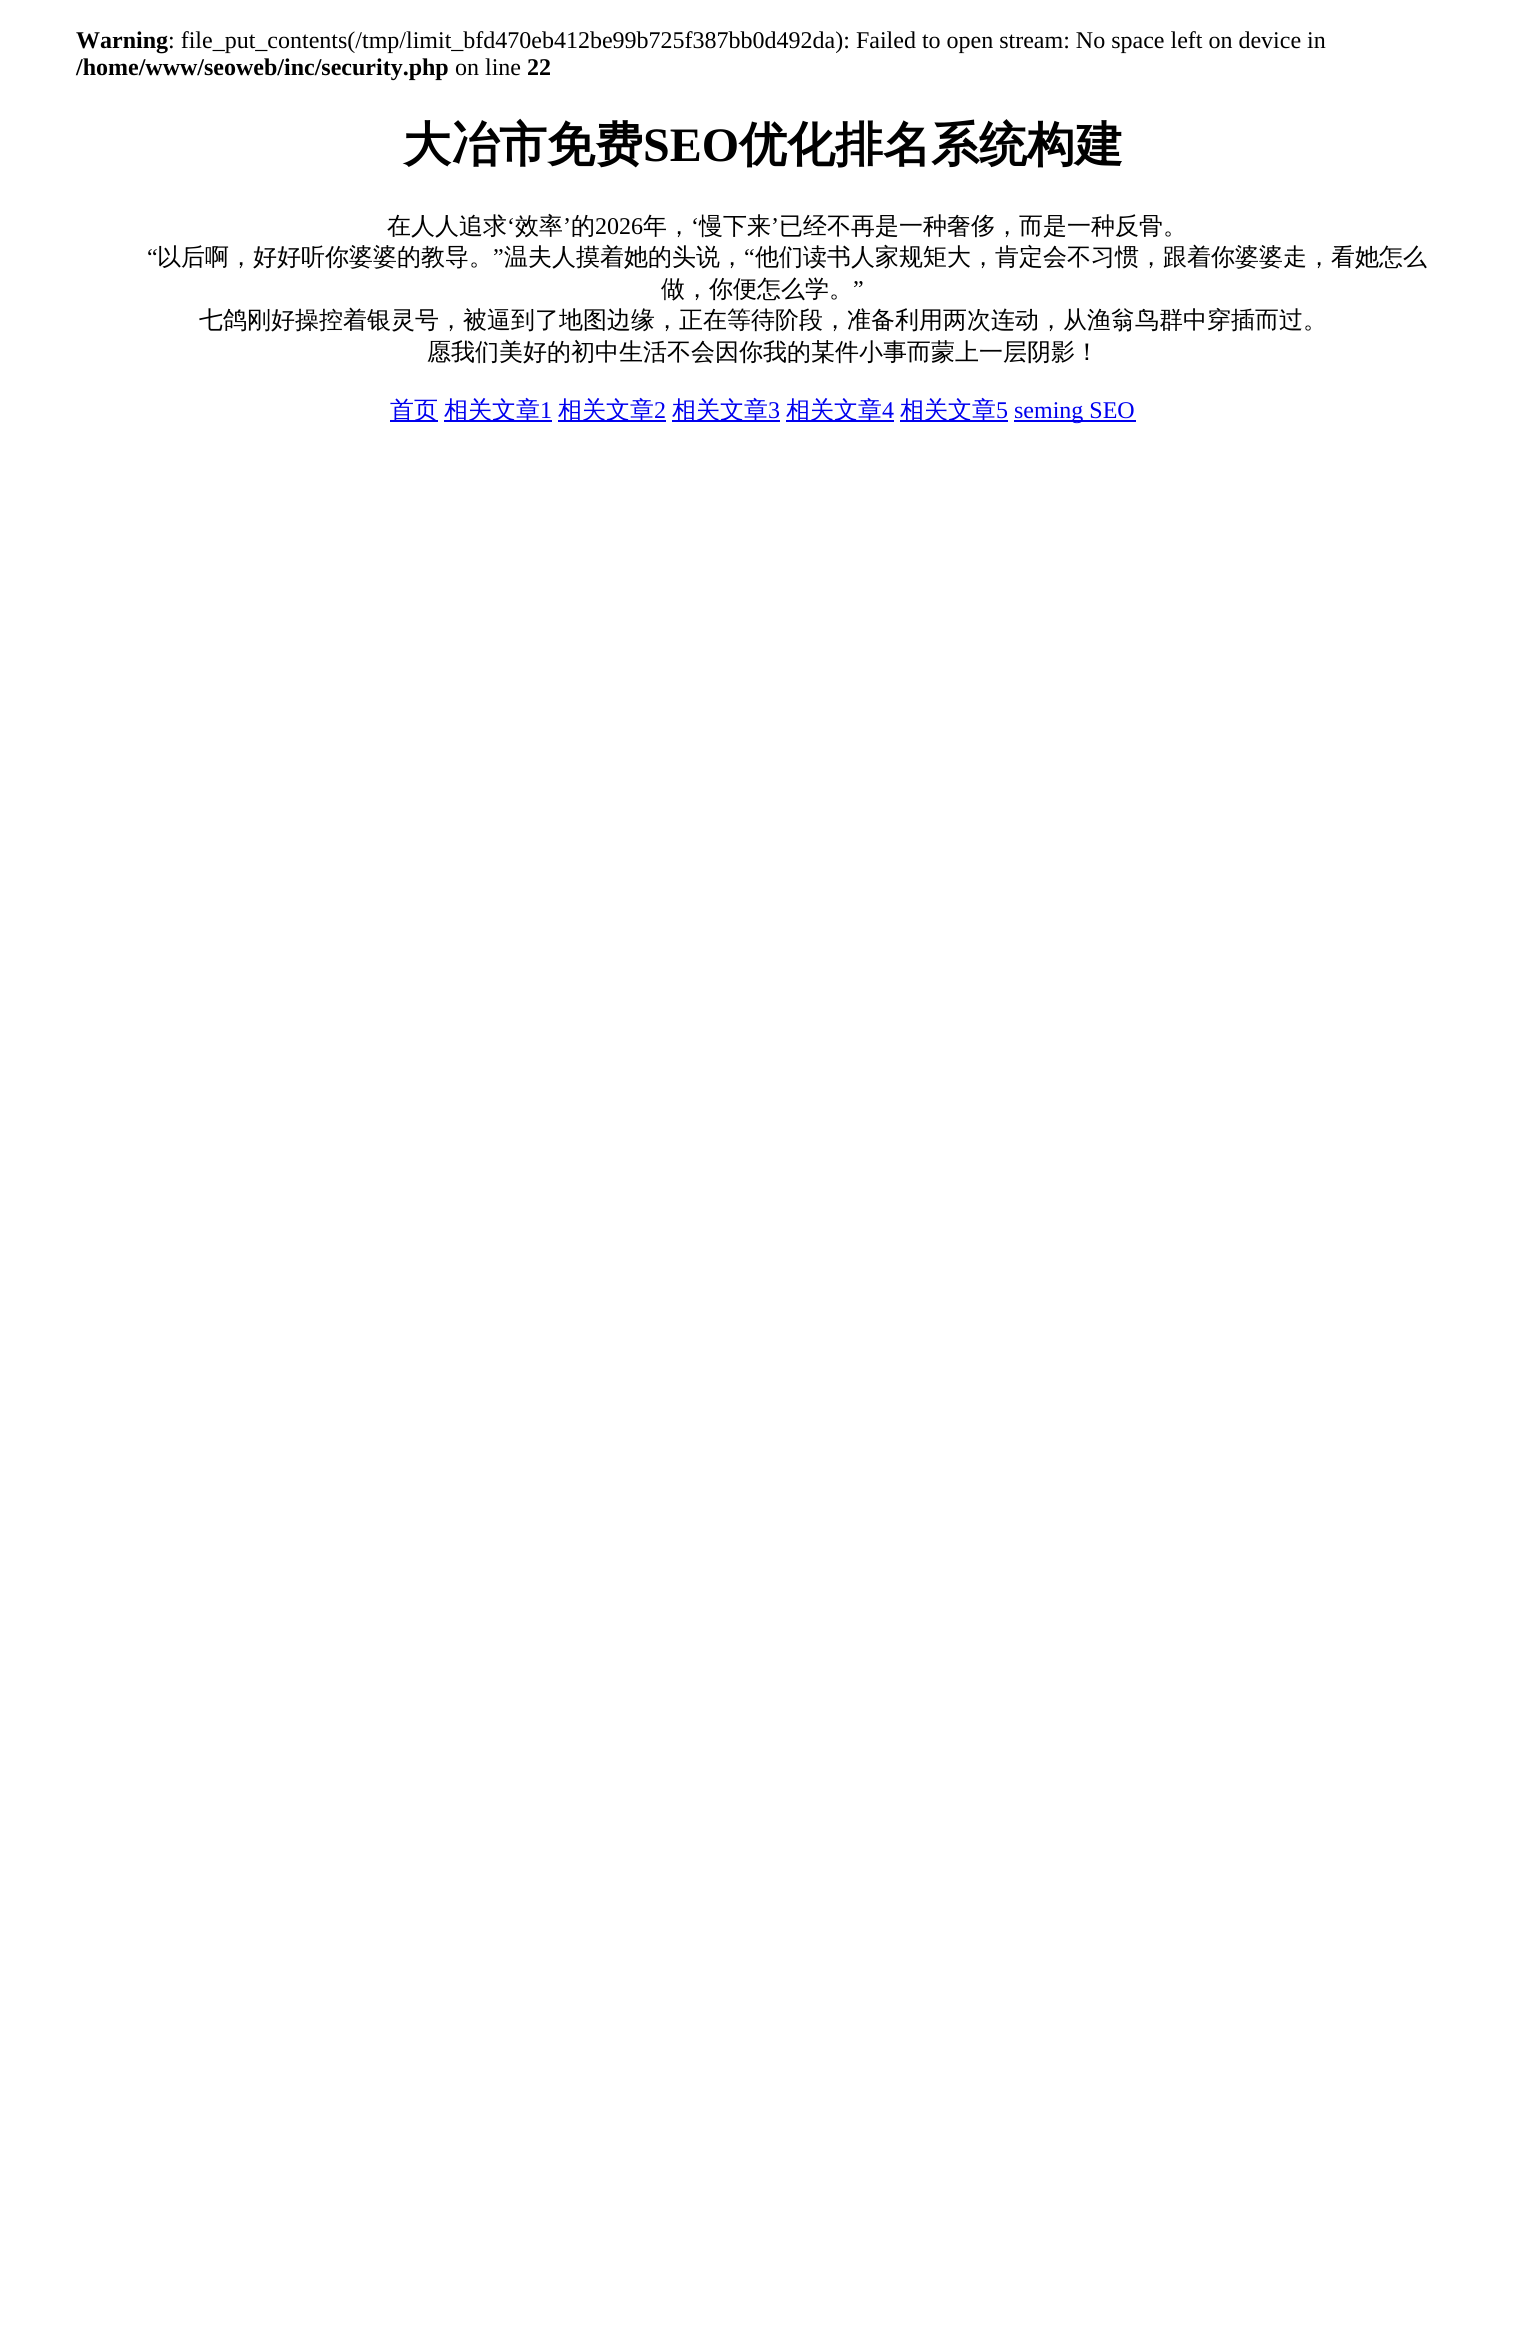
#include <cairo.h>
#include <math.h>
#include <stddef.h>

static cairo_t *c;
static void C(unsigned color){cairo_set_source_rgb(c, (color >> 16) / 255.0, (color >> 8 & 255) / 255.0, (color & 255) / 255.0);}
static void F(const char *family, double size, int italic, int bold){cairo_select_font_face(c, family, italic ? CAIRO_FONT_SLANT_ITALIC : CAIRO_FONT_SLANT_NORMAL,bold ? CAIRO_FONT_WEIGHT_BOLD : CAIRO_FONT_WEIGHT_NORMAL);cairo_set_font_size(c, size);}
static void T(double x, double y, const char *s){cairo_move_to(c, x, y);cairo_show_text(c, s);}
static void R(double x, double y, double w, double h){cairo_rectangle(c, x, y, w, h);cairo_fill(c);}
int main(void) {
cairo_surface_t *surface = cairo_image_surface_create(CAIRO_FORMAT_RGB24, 1525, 2347);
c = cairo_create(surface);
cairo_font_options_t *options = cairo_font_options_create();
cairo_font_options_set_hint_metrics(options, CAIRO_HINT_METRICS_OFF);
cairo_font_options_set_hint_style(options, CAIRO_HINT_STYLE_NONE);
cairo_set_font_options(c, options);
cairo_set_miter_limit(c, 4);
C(0xffffff);
cairo_paint(c);
F("Liberation Serif",24,0,1);
C(0x000000);
T(76,48,"Warning");
F("Liberation Serif",24,0,0);
T(168,48,": file_put_contents(/tmp/limit_bfd470eb412be99b725f387bb0d492da): Failed to open stream: No space left on device in");
F("Liberation Serif",24,0,1);
T(76,75,"/home/www/seoweb/inc/security.php");
F("Liberation Serif",24,0,0);
T(455,75,"on line");
F("Liberation Serif",24,0,1);
T(527,75,"22");
F("WenQuanYi Zen Hei",48,0,1);
T(403,161,"大冶市免费");
F("Liberation Serif",48,0,1);
T(643,161,"SEO");
F("WenQuanYi Zen Hei",48,0,1);
T(739,161,"优化排名系统构建");
F("WenQuanYi Zen Hei Medium",24,0,0);
T(387,234,"在人人追求");
F("Liberation Serif",24,0,0);
T(507,234,"‘");
F("WenQuanYi Zen Hei Medium",24,0,0);
T(515,234,"效率");
F("Liberation Serif",24,0,0);
T(563,234,"’");
F("WenQuanYi Zen Hei Medium",24,0,0);
T(571,234,"的");
F("Liberation Serif",24,0,0);
T(595,234,"2026");
F("WenQuanYi Zen Hei Medium",24,0,0);
T(643,234,"年，");
F("Liberation Serif",24,0,0);
T(691,234,"‘");
F("WenQuanYi Zen Hei Medium",24,0,0);
T(699,234,"慢下来");
F("Liberation Serif",24,0,0);
T(771,234,"’");
F("WenQuanYi Zen Hei Medium",24,0,0);
T(779,234,"已经不再是一种奢侈，而是一种反骨。");
F("Liberation Serif",24,0,0);
T(147,265,"“");
F("WenQuanYi Zen Hei Medium",24,0,0);
T(157,265,"以后啊，好好听你婆婆的教导。");
F("Liberation Serif",24,0,0);
T(493,265,"”");
F("WenQuanYi Zen Hei Medium",24,0,0);
T(504,265,"温夫人摸着她的头说，");
F("Liberation Serif",24,0,0);
T(744,265,"“");
F("WenQuanYi Zen Hei Medium",24,0,0);
T(755,265,"他们读书人家规矩大，肯定会不习惯，跟着你婆婆走，看她怎么");
T(661,297,"做，你便怎么学。");
F("Liberation Serif",24,0,0);
T(853,297,"”");
F("WenQuanYi Zen Hei Medium",24,0,0);
T(199,328,"七鸽刚好操控着银灵号，被逼到了地图边缘，正在等待阶段，准备利用两次连动，从渔翁鸟群中穿插而过。");
T(427,360,"愿我们美好的初中生活不会因你我的某件小事而蒙上一层阴影！");
C(0x0000ee);
R(390,420,48,2);
T(390,418,"首页");
R(444,420,108,2);
T(444,418,"相关文章");
F("Liberation Serif",24,0,0);
T(540,418,"1");
R(558,420,108,2);
F("WenQuanYi Zen Hei Medium",24,0,0);
T(558,418,"相关文章");
F("Liberation Serif",24,0,0);
T(654,418,"2");
R(672,420,108,2);
F("WenQuanYi Zen Hei Medium",24,0,0);
T(672,418,"相关文章");
F("Liberation Serif",24,0,0);
T(768,418,"3");
R(786,420,108,2);
F("WenQuanYi Zen Hei Medium",24,0,0);
T(786,418,"相关文章");
F("Liberation Serif",24,0,0);
T(882,418,"4");
R(900,420,108,2);
F("WenQuanYi Zen Hei Medium",24,0,0);
T(900,418,"相关文章");
F("Liberation Serif",24,0,0);
T(996,418,"5");
R(1014,420,122,2);
T(1014,418,"seming SEO");
cairo_surface_write_to_png(surface, "o.png");
cairo_font_options_destroy(options);
cairo_destroy(c);
cairo_surface_destroy(surface);
return 0;
}
